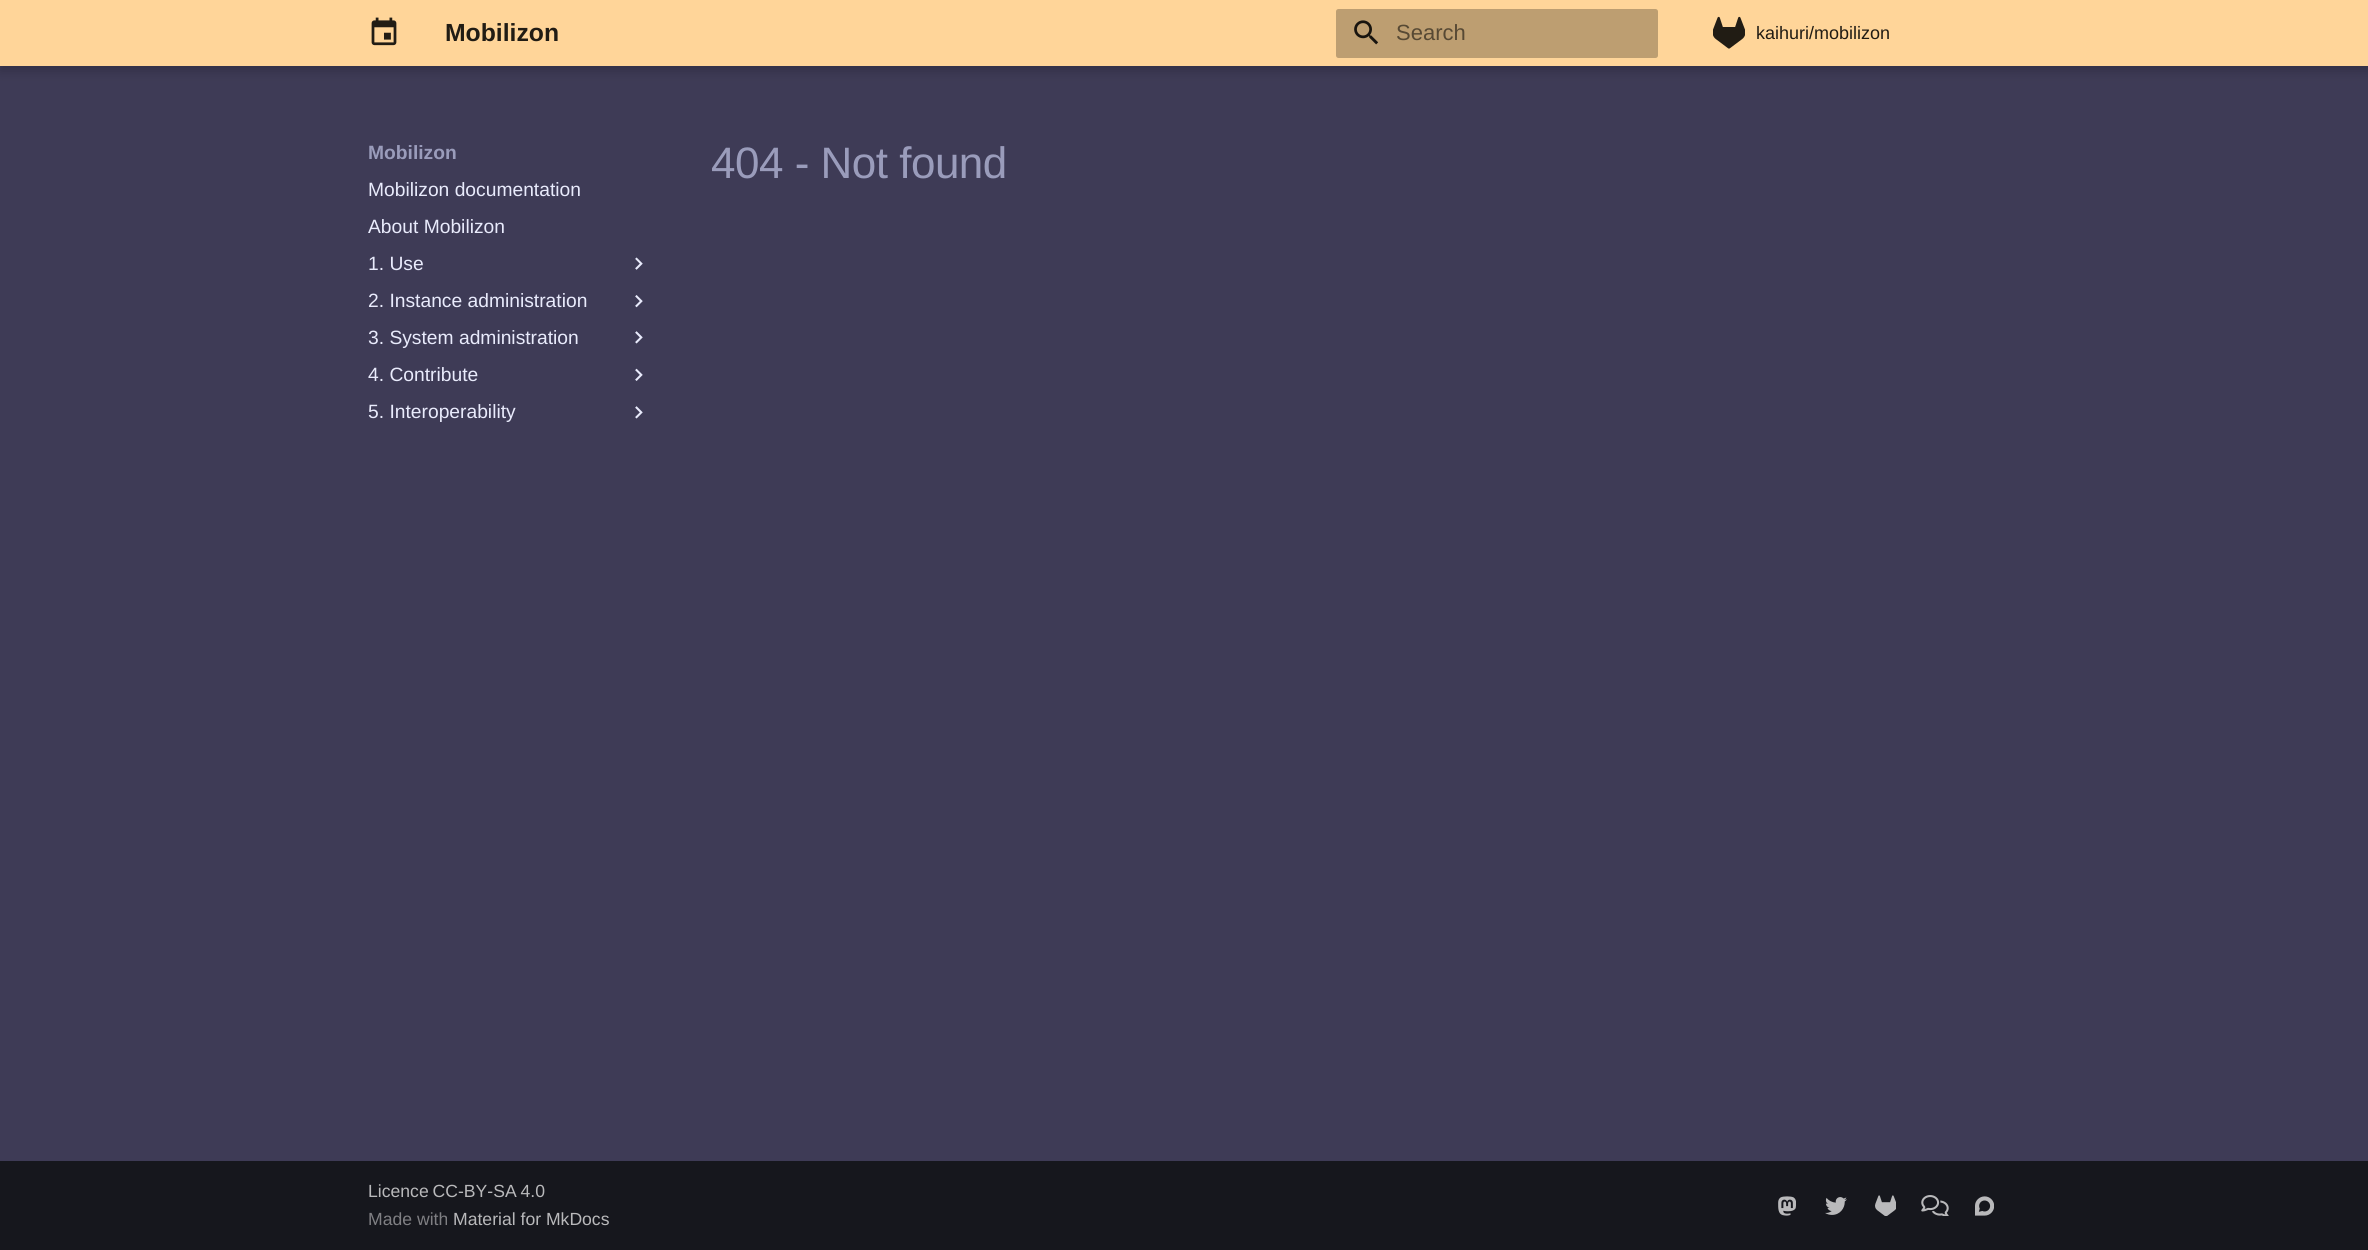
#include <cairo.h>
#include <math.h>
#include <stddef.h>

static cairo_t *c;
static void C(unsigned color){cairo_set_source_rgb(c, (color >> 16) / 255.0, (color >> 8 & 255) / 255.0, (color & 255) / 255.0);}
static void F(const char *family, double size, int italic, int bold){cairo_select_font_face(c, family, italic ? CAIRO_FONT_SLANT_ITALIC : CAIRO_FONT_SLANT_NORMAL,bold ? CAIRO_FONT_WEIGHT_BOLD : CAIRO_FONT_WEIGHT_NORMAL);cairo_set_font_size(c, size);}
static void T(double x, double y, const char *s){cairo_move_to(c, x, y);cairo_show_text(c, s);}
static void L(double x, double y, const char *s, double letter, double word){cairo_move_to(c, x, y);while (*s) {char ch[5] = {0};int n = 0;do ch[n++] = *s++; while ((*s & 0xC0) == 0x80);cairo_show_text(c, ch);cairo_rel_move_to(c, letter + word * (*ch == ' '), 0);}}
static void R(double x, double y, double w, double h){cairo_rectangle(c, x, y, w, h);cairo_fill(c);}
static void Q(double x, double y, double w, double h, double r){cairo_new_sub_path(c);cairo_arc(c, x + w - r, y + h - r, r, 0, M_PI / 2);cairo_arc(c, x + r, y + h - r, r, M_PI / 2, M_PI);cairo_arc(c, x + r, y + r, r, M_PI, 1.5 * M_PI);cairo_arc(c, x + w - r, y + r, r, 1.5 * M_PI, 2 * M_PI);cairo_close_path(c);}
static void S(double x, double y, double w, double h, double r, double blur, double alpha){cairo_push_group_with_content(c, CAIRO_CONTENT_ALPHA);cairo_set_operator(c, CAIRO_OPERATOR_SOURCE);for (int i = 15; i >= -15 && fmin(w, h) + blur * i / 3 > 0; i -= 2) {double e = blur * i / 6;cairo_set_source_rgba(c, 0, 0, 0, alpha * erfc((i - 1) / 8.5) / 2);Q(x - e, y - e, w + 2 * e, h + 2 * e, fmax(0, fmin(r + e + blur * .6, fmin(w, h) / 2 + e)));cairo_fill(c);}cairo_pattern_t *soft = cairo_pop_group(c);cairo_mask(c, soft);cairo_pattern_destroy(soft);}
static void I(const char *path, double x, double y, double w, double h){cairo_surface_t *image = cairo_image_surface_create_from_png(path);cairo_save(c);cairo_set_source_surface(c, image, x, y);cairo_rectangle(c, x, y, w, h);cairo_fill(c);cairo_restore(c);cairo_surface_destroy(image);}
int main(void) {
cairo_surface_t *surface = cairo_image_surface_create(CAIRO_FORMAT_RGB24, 2368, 1250);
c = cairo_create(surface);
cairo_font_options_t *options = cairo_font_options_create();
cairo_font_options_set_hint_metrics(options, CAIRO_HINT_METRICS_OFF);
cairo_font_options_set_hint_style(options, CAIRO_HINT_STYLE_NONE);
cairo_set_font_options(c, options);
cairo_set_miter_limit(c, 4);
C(0x3e3b56);
cairo_paint(c);
C(0x000000);
S(0,5,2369,66,0,5.5,.2);
C(0xffd599);
R(0,0,2368,66);
I("1.png",371,17,26,29);
F("Liberation Sans",24.75,0,1);
C(0x211c14);
T(445,41,"Mobilizon");
C(0xbd9e71);
Q(1336,9,322,49,2.5);
cairo_fill(c);
I("2.png",1354,20,25,25);
F("Liberation Sans",22,0,0);
C(0x574934);
T(1396,40,"Search");
I("3.png",1713,16,32,33);
F("Liberation Sans",18,0,0);
C(0x211c14);
T(1756,39,"kaihuri/mobilizon");
cairo_save(c);
cairo_rectangle(c,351,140,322,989);
cairo_clip(c);
cairo_set_fill_rule(c,CAIRO_FILL_RULE_EVEN_ODD);
cairo_new_path(c);
cairo_move_to(c,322,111);
cairo_line_to(c,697,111);
cairo_line_to(c,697,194);
cairo_line_to(c,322,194);
cairo_close_path(c);
cairo_move_to(c,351,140);
cairo_line_to(c,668,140);
cairo_line_to(c,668,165);
cairo_line_to(c,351,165);
cairo_close_path(c);
cairo_clip(c);
C(0x3e3b56);
S(340,129,339,47,0,5.5,1);
cairo_restore(c);
F("Liberation Sans",19.25,0,1);
C(0x9a9cbb);
T(368,159,"Mobilizon");
F("Liberation Sans",19.25,0,0);
C(0xe9ebfc);
T(368,196,"Mobilizon documentation");
T(368,233,"About Mobilizon");
T(368,270,"1. Use");
I("4.png",635,257,8,13);
T(368,307,"2. Instance administration");
I("5.png",635,295,8,13);
T(368,344,"3. System administration");
I("6.png",635,331,8,13);
T(368,381,"4. Contribute");
I("7.png",635,368,8,13);
T(368,418,"5. Interoperability");
I("6.png",635,406,8,13);
F("Liberation Sans",44,0,0);
C(0x9a9cbb);
L(711,178,"404 - Not found",-.5,0);
C(0x16171d);
R(0,1161,2368,89);
F("Liberation Sans",17.6,0,0);
C(0xb9b9bb);
L(368,1197,"Licence CC-BY-SA 4.0",0,-1);
C(0x7f7f83);
T(368,1225,"Made with");
C(0xb9b9bb);
T(453,1225,"Material for MkDocs");
I("8.png",1778,1196,18,20);
I("9.png",1825,1197,22,18);
I("10.png",1875,1195,21,21);
I("11.png",1921,1195,28,21);
I("12.png",1975,1196,19,20);
cairo_surface_write_to_png(surface, "o.png");
cairo_font_options_destroy(options);
cairo_destroy(c);
cairo_surface_destroy(surface);
return 0;
}
